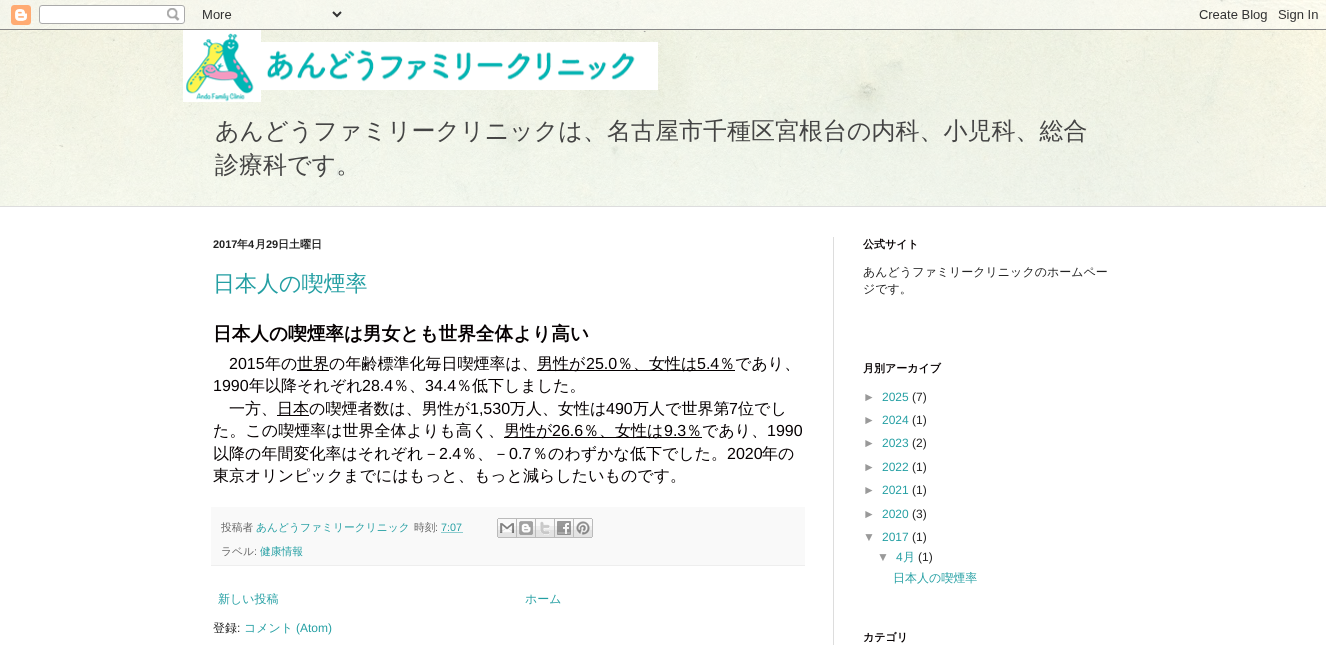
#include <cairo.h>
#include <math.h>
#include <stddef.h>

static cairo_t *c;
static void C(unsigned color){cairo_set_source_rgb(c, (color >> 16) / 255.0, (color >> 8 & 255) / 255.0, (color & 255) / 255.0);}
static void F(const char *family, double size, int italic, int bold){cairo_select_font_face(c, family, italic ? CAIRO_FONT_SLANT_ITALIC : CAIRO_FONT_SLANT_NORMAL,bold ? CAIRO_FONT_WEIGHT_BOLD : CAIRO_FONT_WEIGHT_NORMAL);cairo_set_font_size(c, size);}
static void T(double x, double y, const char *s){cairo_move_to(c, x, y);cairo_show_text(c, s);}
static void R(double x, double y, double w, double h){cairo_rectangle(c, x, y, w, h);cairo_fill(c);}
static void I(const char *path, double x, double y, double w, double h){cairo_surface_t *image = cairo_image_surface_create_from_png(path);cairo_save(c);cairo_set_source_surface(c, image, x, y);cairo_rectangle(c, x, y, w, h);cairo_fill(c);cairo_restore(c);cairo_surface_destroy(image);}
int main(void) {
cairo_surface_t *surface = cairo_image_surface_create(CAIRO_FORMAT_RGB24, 1326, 645);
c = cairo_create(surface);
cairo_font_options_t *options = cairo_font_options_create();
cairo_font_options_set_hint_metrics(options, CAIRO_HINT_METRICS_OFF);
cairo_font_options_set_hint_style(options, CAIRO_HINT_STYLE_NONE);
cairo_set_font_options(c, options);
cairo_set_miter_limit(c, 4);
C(0xffffff);
cairo_paint(c);
I("1.png",0,0,1326,206);
I("2.png",0,0,1326,206);
I("3.png",0,0,1326,30);
I("4.png",183,30,475,72);
F("WenQuanYi Zen Hei Medium",24,0,0);
C(0x444444);
T(215,139,"あんどうファミリークリニックは、名古屋市千種区宮根台の内科、小児科、総合");
T(215,173,"診療科です。");
C(0xdddddd);
R(0,206,1326,1);
R(833,237,1,408);
F("Liberation Sans",11,0,1);
C(0x222222);
T(213,248,"2017");
F("WenQuanYi Zen Hei",11,0,1);
T(237,248,"年");
F("Liberation Sans",11,0,1);
T(248,248,"4");
F("WenQuanYi Zen Hei",11,0,1);
T(255,248,"月");
F("Liberation Sans",11,0,1);
T(266,248,"29");
F("WenQuanYi Zen Hei",11,0,1);
T(278,248,"日土曜日");
F("WenQuanYi Zen Hei Medium",22,0,0);
C(0x249fa3);
T(213,291,"日本人の喫煙率");
F("WenQuanYi Zen Hei",18.65,0,1);
C(0x050001);
T(213,340,"日本人の喫煙率は男女とも世界全体より高い");
F("Liberation Sans",16,0,0);
T(229,369,"2015");
F("WenQuanYi Zen Hei Medium",16,0,0);
T(265,369,"年の");
R(297,370,32,1);
T(297,369,"世界の年齢標準化毎日喫煙率は、");
R(537,370,198,1);
T(537,369,"男性が");
F("Liberation Sans",16,0,0);
T(586,369,"25.0");
F("WenQuanYi Zen Hei Medium",16,0,0);
T(617,369,"％、女性は");
F("Liberation Sans",16,0,0);
T(697,369,"5.4");
F("WenQuanYi Zen Hei Medium",16,0,0);
T(719,369,"％であり、");
F("Liberation Sans",16,0,0);
T(213,391,"1990");
F("WenQuanYi Zen Hei Medium",16,0,0);
T(249,391,"年以降それぞれ");
F("Liberation Sans",16,0,0);
T(362,391,"28.4");
F("WenQuanYi Zen Hei Medium",16,0,0);
T(393,391,"％、");
F("Liberation Sans",16,0,0);
T(425,391,"34.4");
F("WenQuanYi Zen Hei Medium",16,0,0);
T(456,391,"％低下しました。");
T(229,414,"一方、");
R(277,415,32,1);
T(277,414,"日本の喫煙者数は、男性が");
F("Liberation Sans",16,0,0);
T(470,414,"1,530");
F("WenQuanYi Zen Hei Medium",16,0,0);
T(510,414,"万人、女性は");
F("Liberation Sans",16,0,0);
T(606,414,"490");
F("WenQuanYi Zen Hei Medium",16,0,0);
T(633,414,"万人で世界第");
F("Liberation Sans",16,0,0);
T(729,414,"7");
F("WenQuanYi Zen Hei Medium",16,0,0);
T(738,414,"位でし");
T(213,436,"た。この喫煙率は世界全体よりも高く、");
R(504,437,198,1);
T(504,436,"男性が");
F("Liberation Sans",16,0,0);
T(552,436,"26.6");
F("WenQuanYi Zen Hei Medium",16,0,0);
T(583,436,"％、女性は");
F("Liberation Sans",16,0,0);
T(664,436,"9.3");
F("WenQuanYi Zen Hei Medium",16,0,0);
T(686,436,"％であり、");
F("Liberation Sans",16,0,0);
T(767,436,"1990");
F("WenQuanYi Zen Hei Medium",16,0,0);
T(213,459,"以降の年間変化率はそれぞれ－");
F("Liberation Sans",16,0,0);
T(439,459,"2.4");
F("WenQuanYi Zen Hei Medium",16,0,0);
T(461,459,"％、－");
F("Liberation Sans",16,0,0);
T(509,459,"0.7");
F("WenQuanYi Zen Hei Medium",16,0,0);
T(532,459,"％のわずかな低下でした。");
F("Liberation Sans",16,0,0);
T(727,459,"2020");
F("WenQuanYi Zen Hei Medium",16,0,0);
T(762,459,"年の");
T(213,481,"東京オリンピックまでにはもっと、もっと減らしたいものです。");
C(0xf9f9f9);
R(211,507,594,58);
C(0xeeeeee);
R(211,565,594,1);
F("WenQuanYi Zen Hei Medium",10.75,0,0);
C(0x666666);
T(221,531,"投稿者");
C(0x249fa3);
T(256,531,"あんどうファミリークリニック");
C(0x666666);
T(414,531,"時刻");
F("Liberation Sans",10.75,0,0);
T(435,531,":");
C(0x249fa3);
T(441,531,"7:07");
cairo_new_path(c);
cairo_move_to(c,441.5,532.5);
cairo_line_to(c,462.5,532.5);
cairo_set_line_width(c,1);
cairo_set_dash(c,(double[]){1,1},2,0);
cairo_stroke(c);
I("5.png",497,518,20,20);
I("6.png",517,518,19,20);
I("7.png",536,518,19,20);
I("8.png",555,518,19,20);
I("9.png",574,518,19,20);
F("WenQuanYi Zen Hei Medium",10.75,0,0);
C(0x666666);
T(221,555,"ラベル");
F("Liberation Sans",10.75,0,0);
T(254,555,":");
F("WenQuanYi Zen Hei Medium",10.75,0,0);
C(0x249fa3);
T(260,555,"健康情報");
F("WenQuanYi Zen Hei Medium",12,0,0);
T(218,603,"新しい投稿");
T(525,603,"ホーム");
C(0x222222);
T(213,632,"登録");
F("Liberation Sans",12,0,0);
T(237,632,":");
F("WenQuanYi Zen Hei Medium",12,0,0);
C(0x249fa3);
T(244,632,"コメント");
F("Liberation Sans",12,0,0);
T(296,632,"(Atom)");
F("WenQuanYi Zen Hei",11,0,1);
C(0x050001);
T(863,248,"公式サイト");
F("WenQuanYi Zen Hei Medium",12,0,0);
C(0x222222);
T(863,276,"あんどうファミリークリニックのホームペー");
T(863,293,"ジです。");
F("WenQuanYi Zen Hei",11,0,1);
C(0x050001);
T(863,372,"月別アーカイブ");
F("Liberation Sans",12,0,0);
C(0x999999);
T(863,401,"►");
C(0x249fa3);
T(882,401,"2025");
C(0x222222);
T(912,401,"(7)");
C(0x999999);
T(863,424,"►");
C(0x249fa3);
T(882,424,"2024");
C(0x222222);
T(912,424,"(1)");
C(0x999999);
T(863,447,"►");
C(0x249fa3);
T(882,447,"2023");
C(0x222222);
T(912,447,"(2)");
C(0x999999);
T(863,471,"►");
C(0x249fa3);
T(882,471,"2022");
C(0x222222);
T(912,471,"(1)");
C(0x999999);
T(863,494,"►");
C(0x249fa3);
T(882,494,"2021");
C(0x222222);
T(912,494,"(1)");
C(0x999999);
T(863,518,"►");
C(0x249fa3);
T(882,518,"2020");
C(0x222222);
T(912,518,"(3)");
C(0x999999);
T(863,541,"▼");
C(0x249fa3);
T(882,541,"2017");
C(0x222222);
T(912,541,"(1)");
C(0x999999);
T(877,561,"▼");
C(0x249fa3);
T(896,561,"4");
F("WenQuanYi Zen Hei Medium",12,0,0);
T(903,561,"月");
F("Liberation Sans",12,0,0);
C(0x222222);
T(918,561,"(1)");
F("WenQuanYi Zen Hei Medium",12,0,0);
C(0x249fa3);
T(893,582,"日本人の喫煙率");
F("WenQuanYi Zen Hei",11,0,1);
C(0x050001);
T(863,641,"カテゴリ");
cairo_surface_write_to_png(surface, "o.png");
cairo_font_options_destroy(options);
cairo_destroy(c);
cairo_surface_destroy(surface);
return 0;
}
